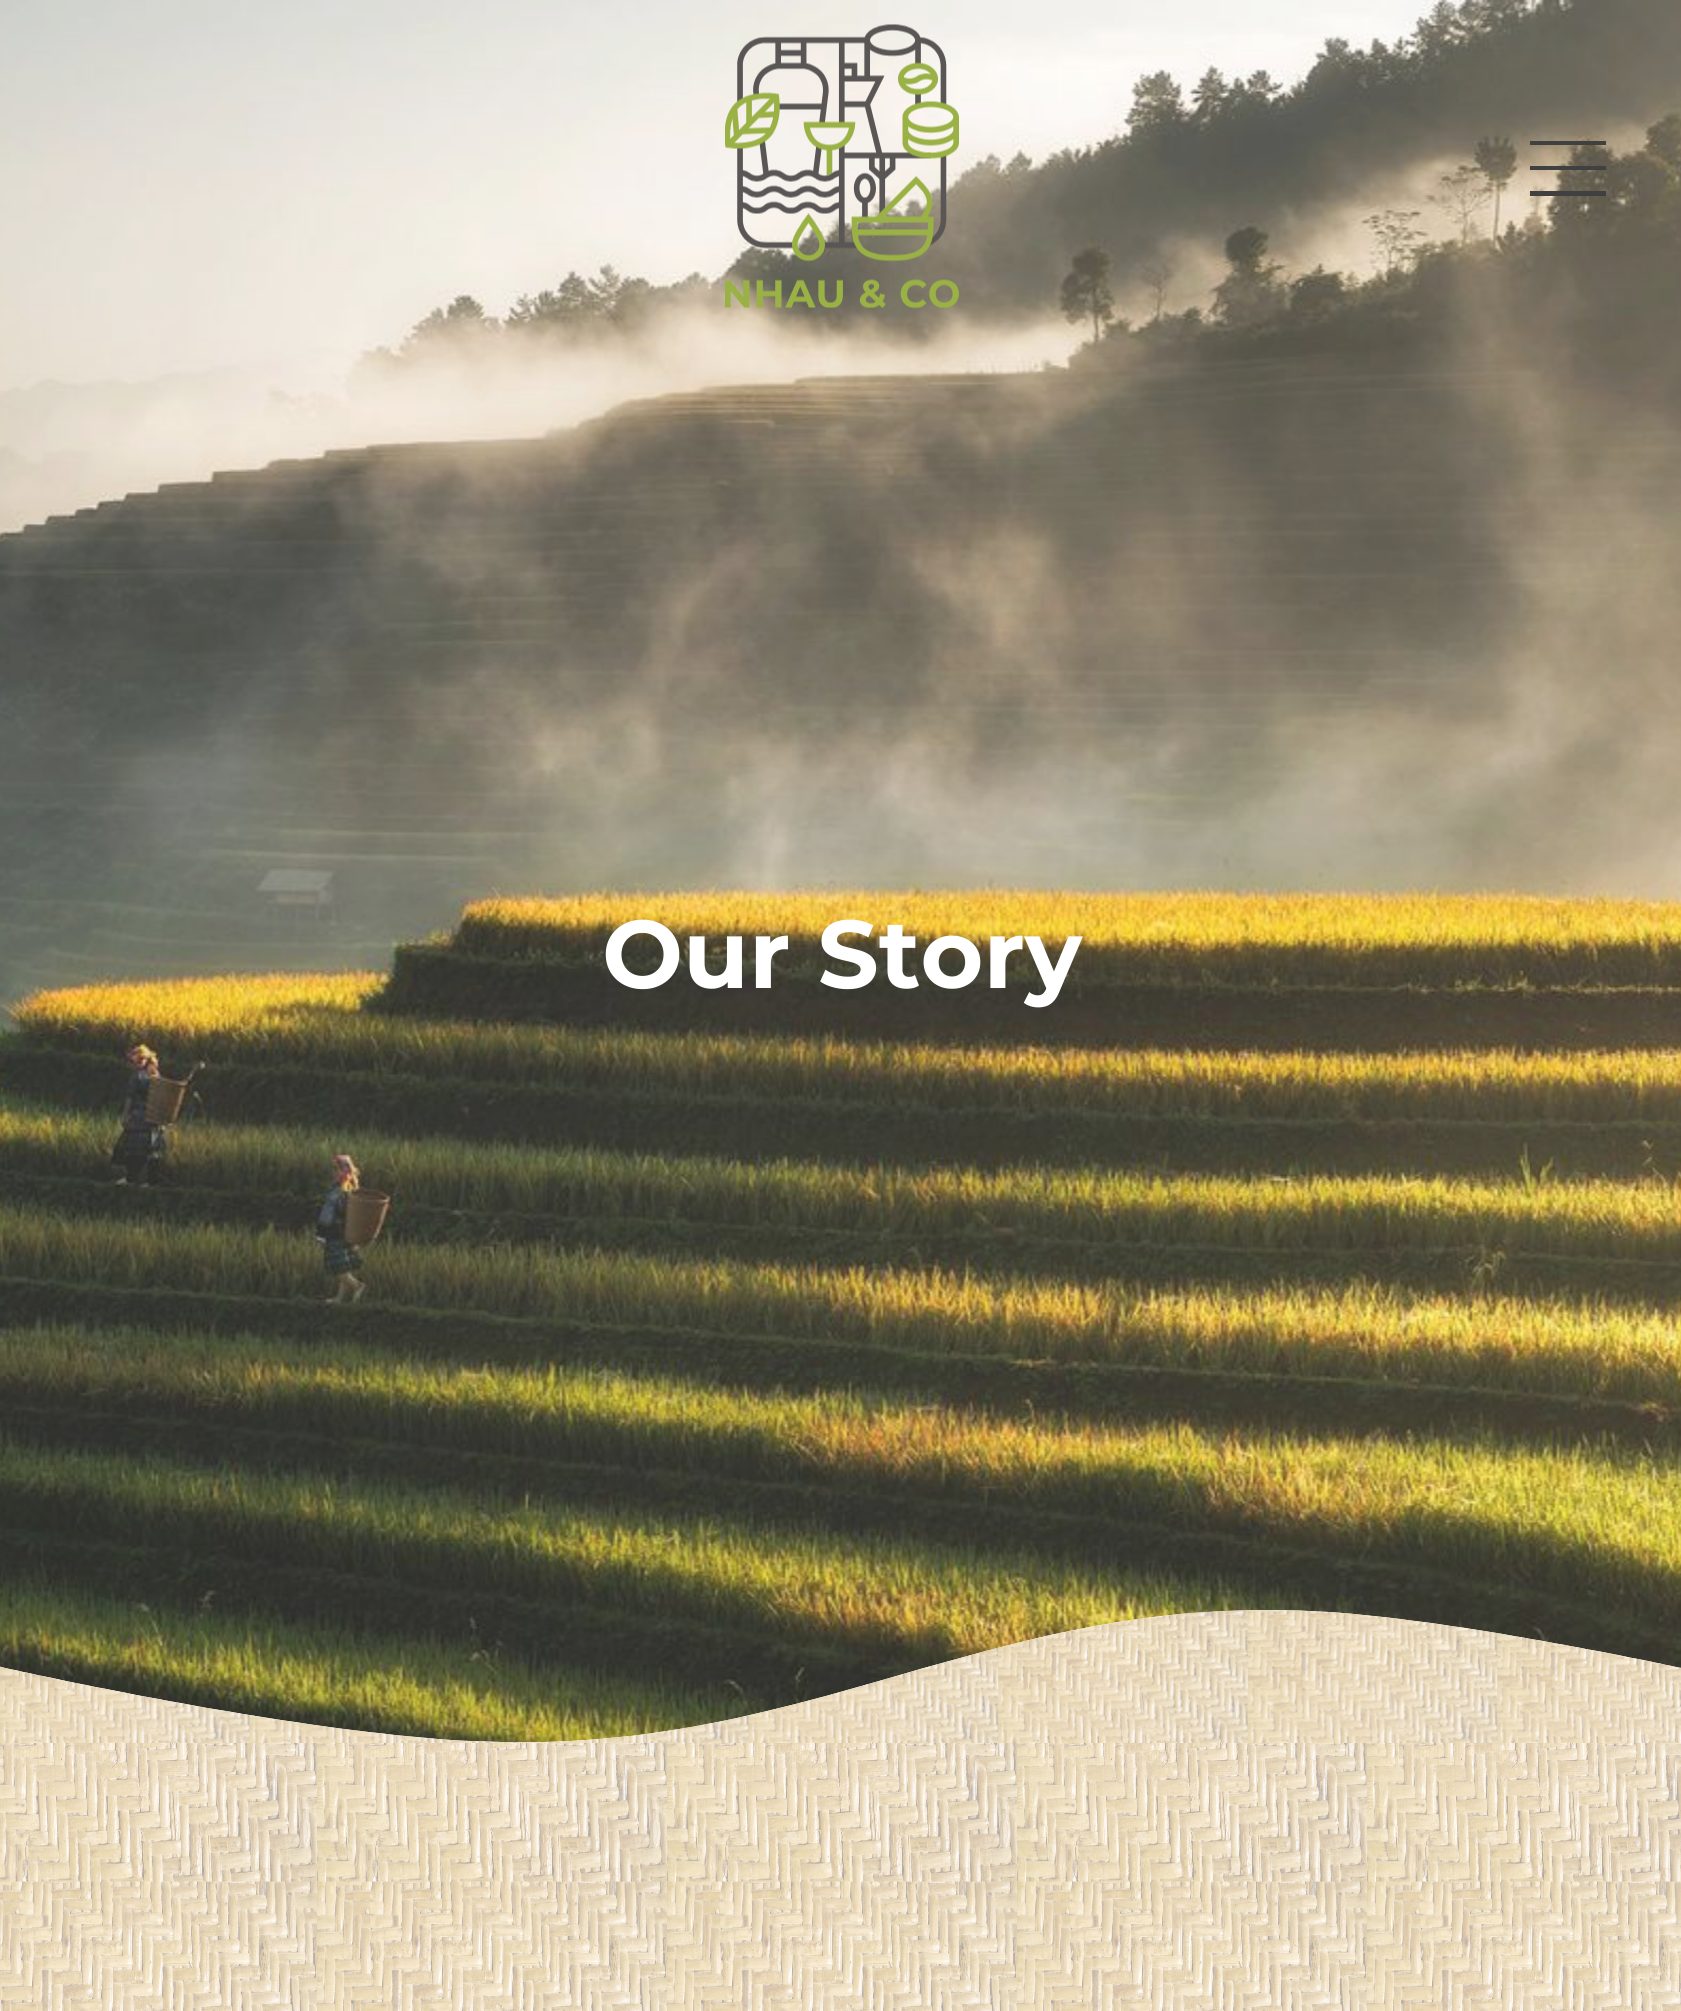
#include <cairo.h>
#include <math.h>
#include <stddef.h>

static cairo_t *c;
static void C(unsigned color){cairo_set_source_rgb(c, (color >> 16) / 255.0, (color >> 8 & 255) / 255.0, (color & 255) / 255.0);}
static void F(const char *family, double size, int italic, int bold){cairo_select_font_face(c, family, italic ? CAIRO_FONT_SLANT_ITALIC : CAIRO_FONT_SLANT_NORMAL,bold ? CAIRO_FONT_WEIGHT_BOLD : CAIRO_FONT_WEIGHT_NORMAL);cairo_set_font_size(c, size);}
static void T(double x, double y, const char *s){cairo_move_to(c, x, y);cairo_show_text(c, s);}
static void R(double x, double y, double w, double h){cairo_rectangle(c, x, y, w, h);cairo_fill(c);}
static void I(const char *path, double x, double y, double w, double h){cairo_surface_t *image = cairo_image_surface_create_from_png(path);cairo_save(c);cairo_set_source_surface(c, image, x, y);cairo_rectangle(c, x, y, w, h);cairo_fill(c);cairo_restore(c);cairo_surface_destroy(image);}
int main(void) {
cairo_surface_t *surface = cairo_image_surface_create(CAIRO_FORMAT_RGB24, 1681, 2011);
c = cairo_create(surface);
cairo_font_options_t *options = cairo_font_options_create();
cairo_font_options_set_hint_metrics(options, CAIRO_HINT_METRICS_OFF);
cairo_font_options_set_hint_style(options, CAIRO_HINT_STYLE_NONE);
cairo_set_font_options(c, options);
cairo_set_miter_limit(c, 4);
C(0xffffff);
cairo_paint(c);
I("2.png",0,0,1681,1743);
I("1.png",725,24,234,285);
C(0x404040);
R(1530,191,76,5);
R(1530,166,76,4);
R(1530,141,76,4);
F("Montserrat",96,0,1);
C(0xffffff);
T(602,988,"Our Story");
I("3.png",0,1610,1681,133);
I("4.png",0,1743,1681,268);
cairo_surface_write_to_png(surface, "o.png");
cairo_font_options_destroy(options);
cairo_destroy(c);
cairo_surface_destroy(surface);
return 0;
}
